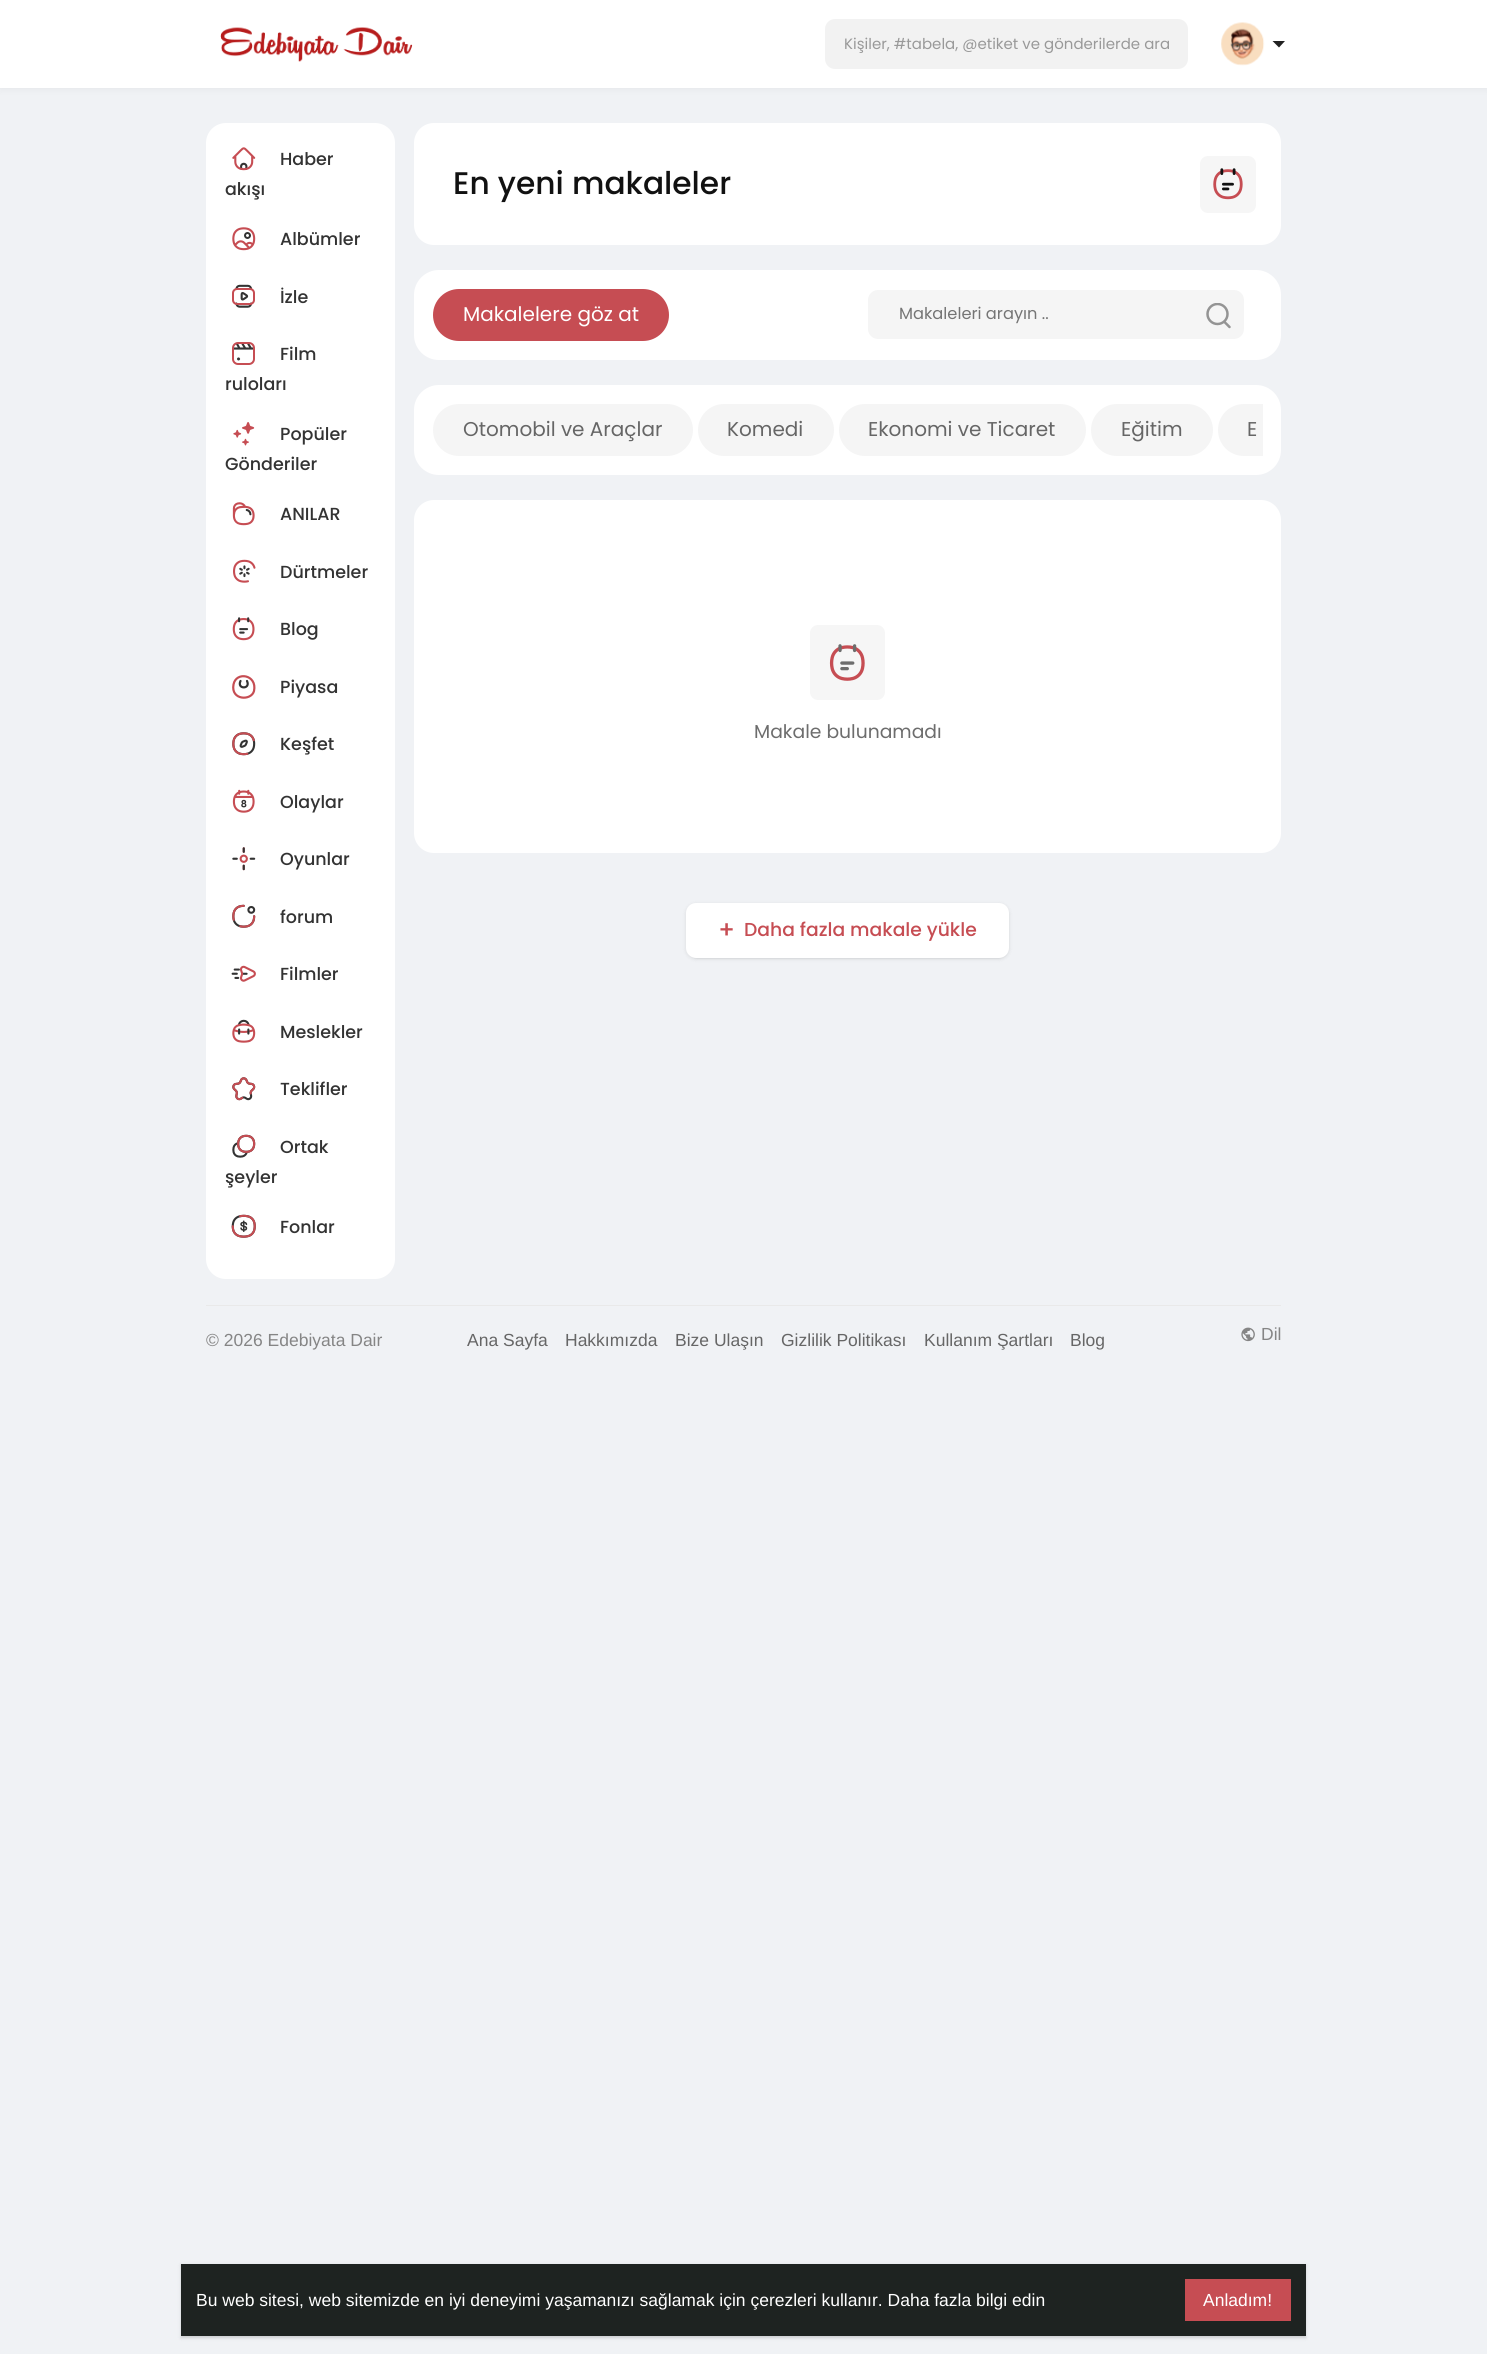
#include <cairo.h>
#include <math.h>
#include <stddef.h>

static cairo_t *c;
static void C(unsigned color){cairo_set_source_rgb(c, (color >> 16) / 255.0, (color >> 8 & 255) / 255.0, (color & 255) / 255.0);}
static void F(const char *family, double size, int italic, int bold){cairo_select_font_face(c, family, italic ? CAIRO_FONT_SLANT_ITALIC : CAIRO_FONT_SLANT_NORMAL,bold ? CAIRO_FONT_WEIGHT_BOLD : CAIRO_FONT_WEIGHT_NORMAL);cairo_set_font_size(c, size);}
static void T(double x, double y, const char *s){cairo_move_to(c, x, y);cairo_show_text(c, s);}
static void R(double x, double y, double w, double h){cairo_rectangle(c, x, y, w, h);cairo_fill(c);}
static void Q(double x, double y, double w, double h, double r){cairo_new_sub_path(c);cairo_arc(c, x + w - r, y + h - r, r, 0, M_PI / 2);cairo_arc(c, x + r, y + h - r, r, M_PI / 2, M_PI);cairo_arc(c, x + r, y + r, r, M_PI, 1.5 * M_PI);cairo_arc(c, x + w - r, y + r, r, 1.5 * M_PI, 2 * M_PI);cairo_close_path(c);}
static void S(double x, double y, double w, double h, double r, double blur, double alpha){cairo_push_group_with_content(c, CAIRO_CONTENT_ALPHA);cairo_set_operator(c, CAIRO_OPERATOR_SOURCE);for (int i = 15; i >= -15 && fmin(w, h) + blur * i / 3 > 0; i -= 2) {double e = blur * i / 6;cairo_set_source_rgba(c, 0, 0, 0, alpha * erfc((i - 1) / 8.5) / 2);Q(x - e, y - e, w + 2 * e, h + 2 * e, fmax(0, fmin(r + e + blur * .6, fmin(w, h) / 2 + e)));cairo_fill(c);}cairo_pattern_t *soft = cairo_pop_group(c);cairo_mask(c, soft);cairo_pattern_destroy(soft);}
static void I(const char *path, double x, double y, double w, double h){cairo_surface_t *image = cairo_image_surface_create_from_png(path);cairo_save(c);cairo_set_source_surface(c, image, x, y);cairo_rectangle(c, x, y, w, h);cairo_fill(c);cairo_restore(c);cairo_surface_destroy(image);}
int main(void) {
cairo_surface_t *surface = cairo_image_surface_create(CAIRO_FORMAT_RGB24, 1487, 2354);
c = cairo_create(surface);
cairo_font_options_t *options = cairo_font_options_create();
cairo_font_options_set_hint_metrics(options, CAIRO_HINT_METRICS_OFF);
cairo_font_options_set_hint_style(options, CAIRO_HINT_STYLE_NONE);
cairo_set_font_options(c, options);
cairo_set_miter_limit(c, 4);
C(0xf0f2f5);
cairo_paint(c);
C(0x000000);
S(0,1,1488,88,0,4,.05);
C(0xffffff);
R(0,0,1487,88);
I("1.png",220,27,193,35);
C(0xf2f2f2);
Q(825,19,363,50,10);
cairo_fill(c);
F("Poppins",15,0,0);
C(0x999999);
T(844,49,"Kişiler, #tabela, @etiket ve gönderilerde ara");
I("2.png",1221,22,44,44);
C(0x222222);
cairo_new_path(c);
cairo_move_to(c,1272.5,41);
cairo_line_to(c,1285,41);
cairo_line_to(c,1279,47.5);
cairo_close_path(c);
cairo_fill(c);
C(0xffffff);
Q(206,123,189,1156,20);
cairo_fill(c);
I("3.png",232,147,24,24);
F("Poppins Medium",17.5,0,0);
C(0x333333);
T(280,165,"Haber");
T(225,195,"akışı");
I("4.png",232,227,24,24);
T(280,245,"Albümler");
I("5.png",232,284,23,24);
T(280,303,"İzle");
I("6.png",232,342,23,23);
T(280,360,"Film");
T(225,390,"ruloları");
I("7.png",233,422,22,24);
T(280,440,"Popüler");
T(225,470,"Gönderiler");
I("8.png",232,502,23,24);
T(280,520,"ANILAR");
I("9.png",233,559,23,24);
T(280,578,"Dürtmeler");
I("10.png",232,617,23,24);
T(280,635,"Blog");
cairo_new_path(c);
cairo_move_to(c,240.5,681);
cairo_curve_to(c,236.5,689.5,251,689.5,247,681);
cairo_set_line_width(c,2.2);
cairo_set_line_cap(c,CAIRO_LINE_CAP_ROUND);
cairo_stroke(c);
cairo_new_path(c);
cairo_move_to(c,254,691);
cairo_curve_to(c,251.5,701,230.5,700.5,233.5,684.5);
cairo_curve_to(c,236,671,257.5,674.5,254,691);
cairo_close_path(c);
C(0xc64d53);
cairo_set_line_cap(c,CAIRO_LINE_CAP_BUTT);
cairo_stroke(c);
C(0x333333);
T(280,693,"Piyasa");
I("11.png",232,732,24,24);
T(280,750,"Keşfet");
I("12.png",232,789,23,24);
T(280,808,"Olaylar");
I("13.png",232,847,24,24);
T(280,865,"Oyunlar");
I("14.png",232,904,24,24);
T(280,923,"forum");
I("15.png",231,965,25,17);
T(280,980,"Filmler");
I("16.png",232,1019,24,24);
T(280,1038,"Meslekler");
I("17.png",232,1077,24,24);
T(280,1095,"Teklifler");
I("18.png",232,1134,24,24);
T(280,1153,"Ortak");
T(225,1183,"şeyler");
I("19.png",231,1214,25,24);
T(280,1233,"Fonlar");
C(0xffffff);
Q(414,123,867,122,20);
cairo_fill(c);
F("Poppins Medium",31.25,0,0);
C(0x111111);
T(453,194,"En yeni makaleler");
C(0xf6f6f6);
Q(1200,156,56,57,8);
cairo_fill(c);
I("20.png",1213,168,30,32);
C(0xffffff);
Q(414,270,867,90,25);
cairo_fill(c);
C(0xc64d53);
Q(433,289,236,52,26);
cairo_fill(c);
F("Poppins",20,0,0);
C(0xffffff);
T(463,321,"Makalelere göz at");
C(0xf5f5f5);
Q(868,290,376,49,10);
cairo_fill(c);
F("Poppins",16.25,0,0);
C(0x757575);
T(899,319,"Makaleleri arayın ..");
cairo_save(c);
cairo_rectangle(c,1206,303,25,26);
cairo_clip(c);
cairo_arc(c,1217.5,314,10,0,2 * M_PI);
C(0x949494);
cairo_set_line_width(c,2.5);
cairo_stroke(c);
cairo_restore(c);
cairo_new_path(c);
cairo_move_to(c,1224.5,322);
cairo_line_to(c,1229.5,327);
C(0x949494);
cairo_set_line_width(c,2.5);
cairo_set_line_cap(c,CAIRO_LINE_CAP_ROUND);
cairo_stroke(c);
C(0xffffff);
Q(414,385,867,90,25);
cairo_fill(c);
C(0xf5f5f5);
Q(433,404,260,52,26);
cairo_fill(c);
F("Poppins",20,0,0);
C(0x666666);
T(463,436,"Otomobil ve Araçlar");
C(0xf5f5f5);
Q(698,404,136,52,26);
cairo_fill(c);
C(0x666666);
T(727,436,"Komedi");
C(0xf5f5f5);
Q(839,404,247,52,26);
cairo_fill(c);
C(0x666666);
T(868,436,"Ekonomi ve Ticaret");
C(0xf5f5f5);
Q(1091,404,122,52,26);
cairo_fill(c);
C(0x666666);
T(1121,436,"Eğitim");
C(0xf5f5f5);
cairo_new_path(c);
cairo_move_to(c,1244,404);
cairo_line_to(c,1263,404);
cairo_line_to(c,1263,456);
cairo_line_to(c,1244,456);
cairo_curve_to(c,1229.5,456,1218,444.5,1218,430);
cairo_curve_to(c,1218,415.5,1229.5,404,1244,404);
cairo_close_path(c);
cairo_fill(c);
C(0x666666);
T(1247,436,"E");
C(0xffffff);
Q(414,500,867,353,20);
cairo_fill(c);
C(0xf6f6f6);
Q(810,625,75,75,8);
cairo_fill(c);
I("21.png",829,644,36,37);
F("Poppins",18.75,0,0);
C(0x6d6d6d);
T(754,738,"Makale bulunamadı");
C(0x000000);
S(688,905,320,53,9,1,.1);
S(686,904,323,55,10,2,.1);
C(0xffffff);
Q(686,903,323,55,10);
cairo_fill(c);
F("Poppins Medium",24,0,0);
C(0xc64d53);
T(718,938,"+");
F("Poppins Medium",18.75,0,0);
T(744,936,"Daha fazla makale yükle");
C(0xe9e9e9);
R(206,1305,1075,1);
F("Liberation Sans",17.5,0,0);
C(0x858585);
T(206,1346,"© 2026 Edebiyata Dair");
C(0x666666);
T(467,1346,"Ana Sayfa");
T(565,1346,"Hakkımızda");
T(675,1346,"Bize Ulaşın");
T(781,1346,"Gizlilik Politikası");
T(924,1346,"Kullanım Şartları");
T(1070,1346,"Blog");
I("22.png",1241,1327,14,15);
C(0x858585);
T(1261,1340,"Dil");
C(0x000000);
S(181,2265,1125,73,0,1,.06);
S(181,2265,1125,73,0,2,.1);
C(0x1e2321);
R(181,2264,1125,72);
C(0xffffff);
T(196,2306,"Bu web sitesi, web sitemizde en iyi deneyimi yaşamanızı sağlamak için çerezleri kullanır. Daha fazla bilgi edin");
C(0xc64d53);
R(1185,2279,106,42);
C(0xffffff);
T(1203,2306,"Anladım!");
cairo_surface_write_to_png(surface, "o.png");
cairo_font_options_destroy(options);
cairo_destroy(c);
cairo_surface_destroy(surface);
return 0;
}
